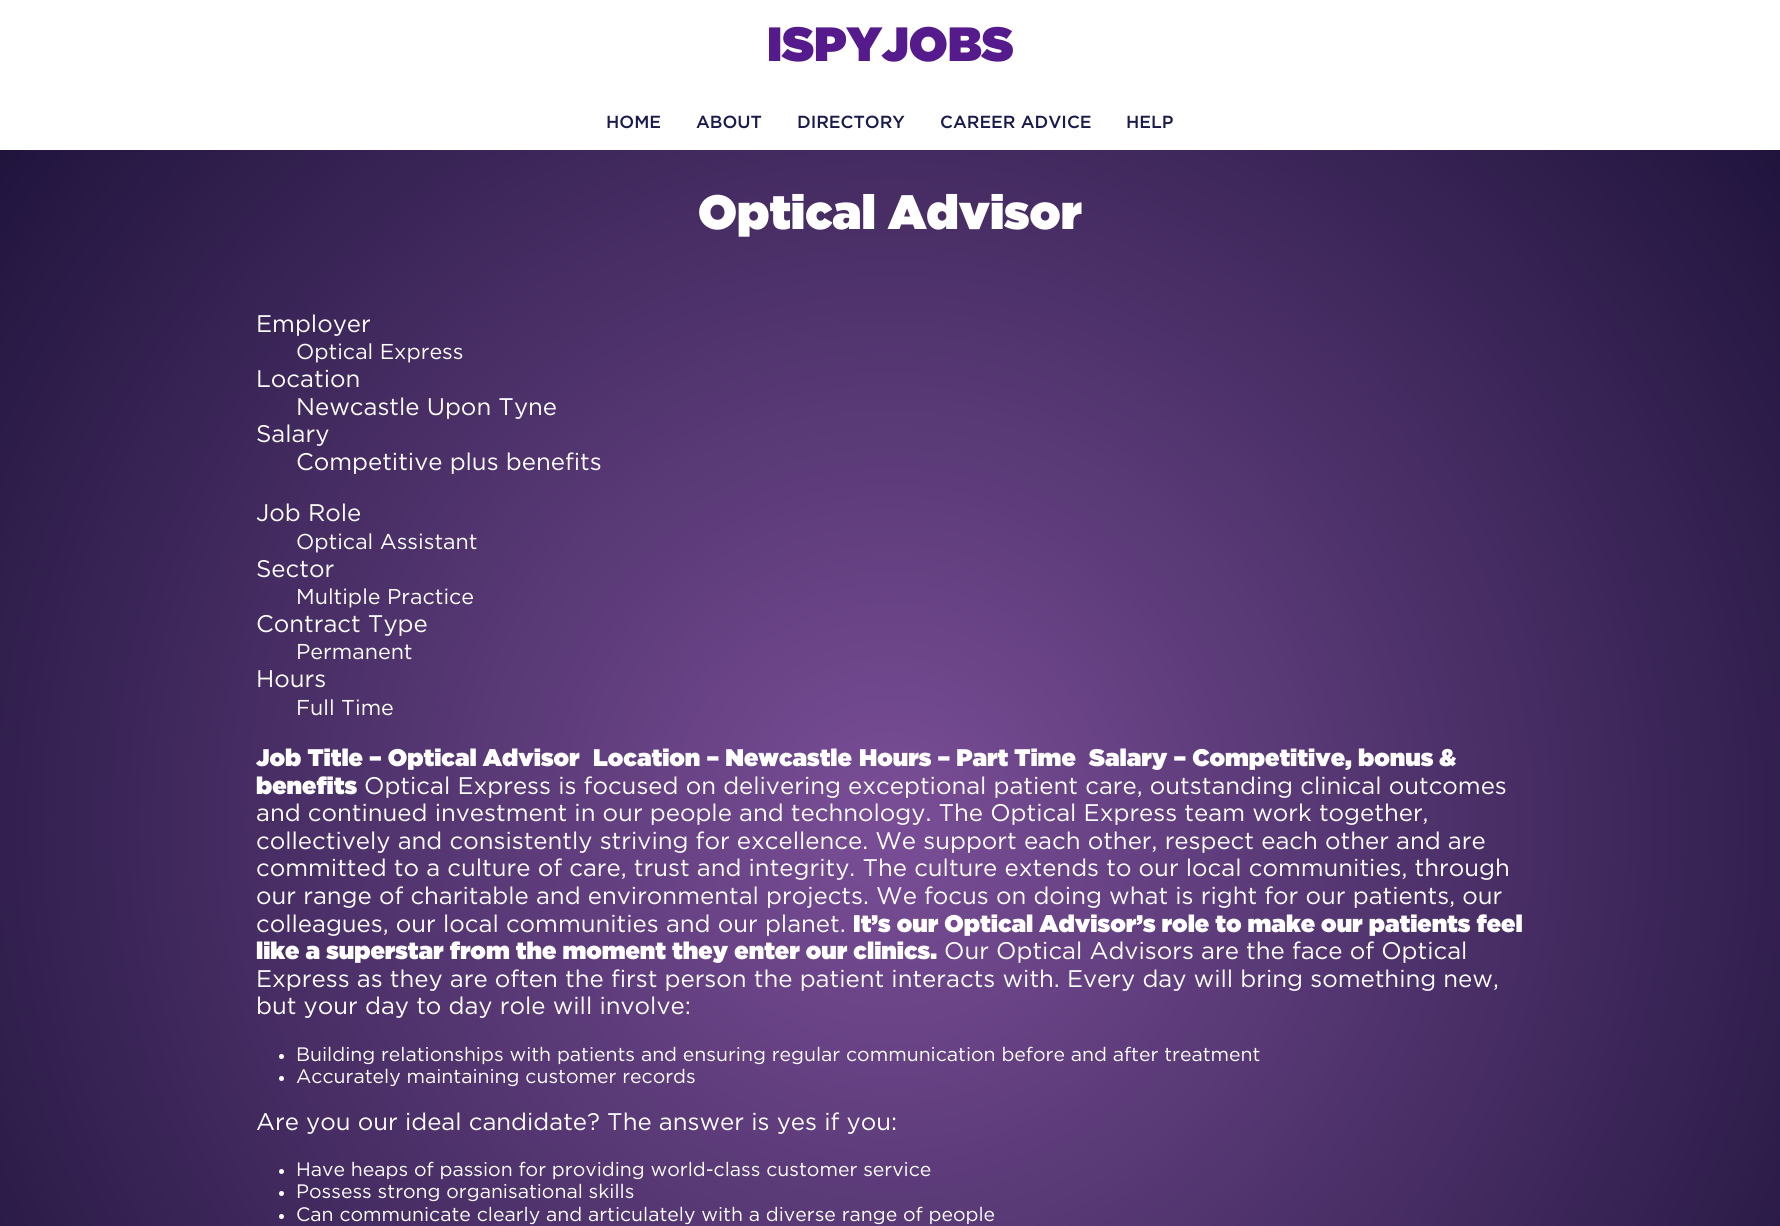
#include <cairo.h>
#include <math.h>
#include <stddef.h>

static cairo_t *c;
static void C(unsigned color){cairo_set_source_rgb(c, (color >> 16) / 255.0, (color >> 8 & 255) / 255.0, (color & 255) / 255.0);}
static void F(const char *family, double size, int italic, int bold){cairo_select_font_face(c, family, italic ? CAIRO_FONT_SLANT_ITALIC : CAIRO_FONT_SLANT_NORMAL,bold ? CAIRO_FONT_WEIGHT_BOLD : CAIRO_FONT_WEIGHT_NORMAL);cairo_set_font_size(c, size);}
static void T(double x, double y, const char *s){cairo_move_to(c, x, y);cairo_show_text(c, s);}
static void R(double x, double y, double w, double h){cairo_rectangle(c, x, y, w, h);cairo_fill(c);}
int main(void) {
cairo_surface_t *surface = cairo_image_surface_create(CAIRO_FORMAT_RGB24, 1780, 1226);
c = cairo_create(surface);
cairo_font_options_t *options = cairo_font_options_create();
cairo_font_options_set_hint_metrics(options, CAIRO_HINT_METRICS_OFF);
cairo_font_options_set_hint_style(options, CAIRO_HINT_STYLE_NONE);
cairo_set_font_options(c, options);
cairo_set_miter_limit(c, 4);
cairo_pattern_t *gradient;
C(0xffffff);
cairo_paint(c);
F("Gotham Medium",48,0,0);
C(0x551a8b);
T(767,61,"ISPYJOBS");
F("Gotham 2 Medium",17.5,0,0);
C(0x191b4c);
T(606,128,"HOME");
T(696,128,"ABOUT");
T(797,128,"DIRECTORY");
T(940,128,"CAREER ADVICE");
T(1126,128,"HELP");
gradient = cairo_pattern_create_radial(890,824,0,890,824,1116);
cairo_pattern_add_color_stop_rgba(gradient,0,0.478,0.306,0.592,1);
cairo_pattern_add_color_stop_rgba(gradient,1,0.125,0.078,0.239,1);
cairo_set_source(c,gradient);
cairo_pattern_destroy(gradient);
R(0,150,1780,1076);
F("Gotham Medium",48,0,0);
C(0xffffff);
T(698,229,"Optical Advisor");
F("Gotham",24,0,0);
T(256,332,"Employer");
F("Gotham",21.5,0,0);
T(296,359,"Optical Express");
F("Gotham",24,0,0);
T(256,387,"Location");
T(296,415,"Newcastle Upon Tyne");
T(256,442,"Salary");
T(296,470,"Competitive plus benefits");
T(256,521,"Job Role");
F("Gotham",21.5,0,0);
T(296,549,"Optical Assistant");
F("Gotham",24,0,0);
T(256,577,"Sector");
F("Gotham",21.5,0,0);
T(296,604,"Multiple Practice");
F("Gotham",24,0,0);
T(256,632,"Contract Type");
F("Gotham",21.5,0,0);
T(296,659,"Permanent");
F("Gotham",24,0,0);
T(256,687,"Hours");
F("Gotham",21.5,0,0);
T(296,715,"Full Time");
F("Gotham Medium",24,0,0);
T(256,766,"Job Title – Optical Advisor");
T(593,766,"Location – Newcastle");
T(859,766,"Hours – Part Time");
T(1089,766,"Salary – Competitive, bonus &");
T(256,794,"benefits");
F("Gotham",24,0,0);
T(364,794,"Optical Express is focused on delivering exceptional patient care, outstanding clinical outcomes");
T(256,821,"and continued investment in our people and technology. The Optical Express team work together,");
T(256,849,"collectively and consistently striving for excellence. We support each other, respect each other and are");
T(256,876,"committed to a culture of care, trust and integrity. The culture extends to our local communities, through");
T(256,904,"our range of charitable and environmental projects. We focus on doing what is right for our patients, our");
T(256,932,"colleagues, our local communities and our planet.");
F("Gotham Medium",24,0,0);
T(853,932,"It’s our Optical Advisor’s role to make our patients feel");
T(256,959,"like a superstar from the moment they enter our clinics.");
F("Gotham",24,0,0);
T(944,959,"Our Optical Advisors are the face of Optical");
T(256,987,"Express as they are often the first person the patient interacts with. Every day will bring something new,");
T(256,1014,"but your day to day role will involve:");
cairo_new_path(c);
cairo_arc(c,281.5,1056.5,2.5,0,2 * M_PI);
cairo_fill(c);
F("Gotham",19.45,0,0);
T(296,1061,"Building relationships with patients and ensuring regular communication before and after treatment");
cairo_new_path(c);
cairo_arc(c,281.5,1078.5,2.5,0,2 * M_PI);
cairo_fill(c);
T(296,1083,"Accurately maintaining customer records");
F("Gotham",24,0,0);
T(256,1130,"Are you our ideal candidate? The answer is yes if you:");
cairo_new_path(c);
cairo_arc(c,281.5,1171.5,2.5,0,2 * M_PI);
cairo_fill(c);
F("Gotham",19.45,0,0);
T(296,1176,"Have heaps of passion for providing world-class customer service");
cairo_new_path(c);
cairo_arc(c,281.5,1193.5,2.5,0,2 * M_PI);
cairo_fill(c);
T(296,1198,"Possess strong organisational skills");
cairo_new_path(c);
cairo_arc(c,281.5,1216.5,2.5,0,2 * M_PI);
cairo_fill(c);
T(296,1221,"Can communicate clearly and articulately with a diverse range of people");
cairo_surface_write_to_png(surface, "o.png");
cairo_font_options_destroy(options);
cairo_destroy(c);
cairo_surface_destroy(surface);
return 0;
}
